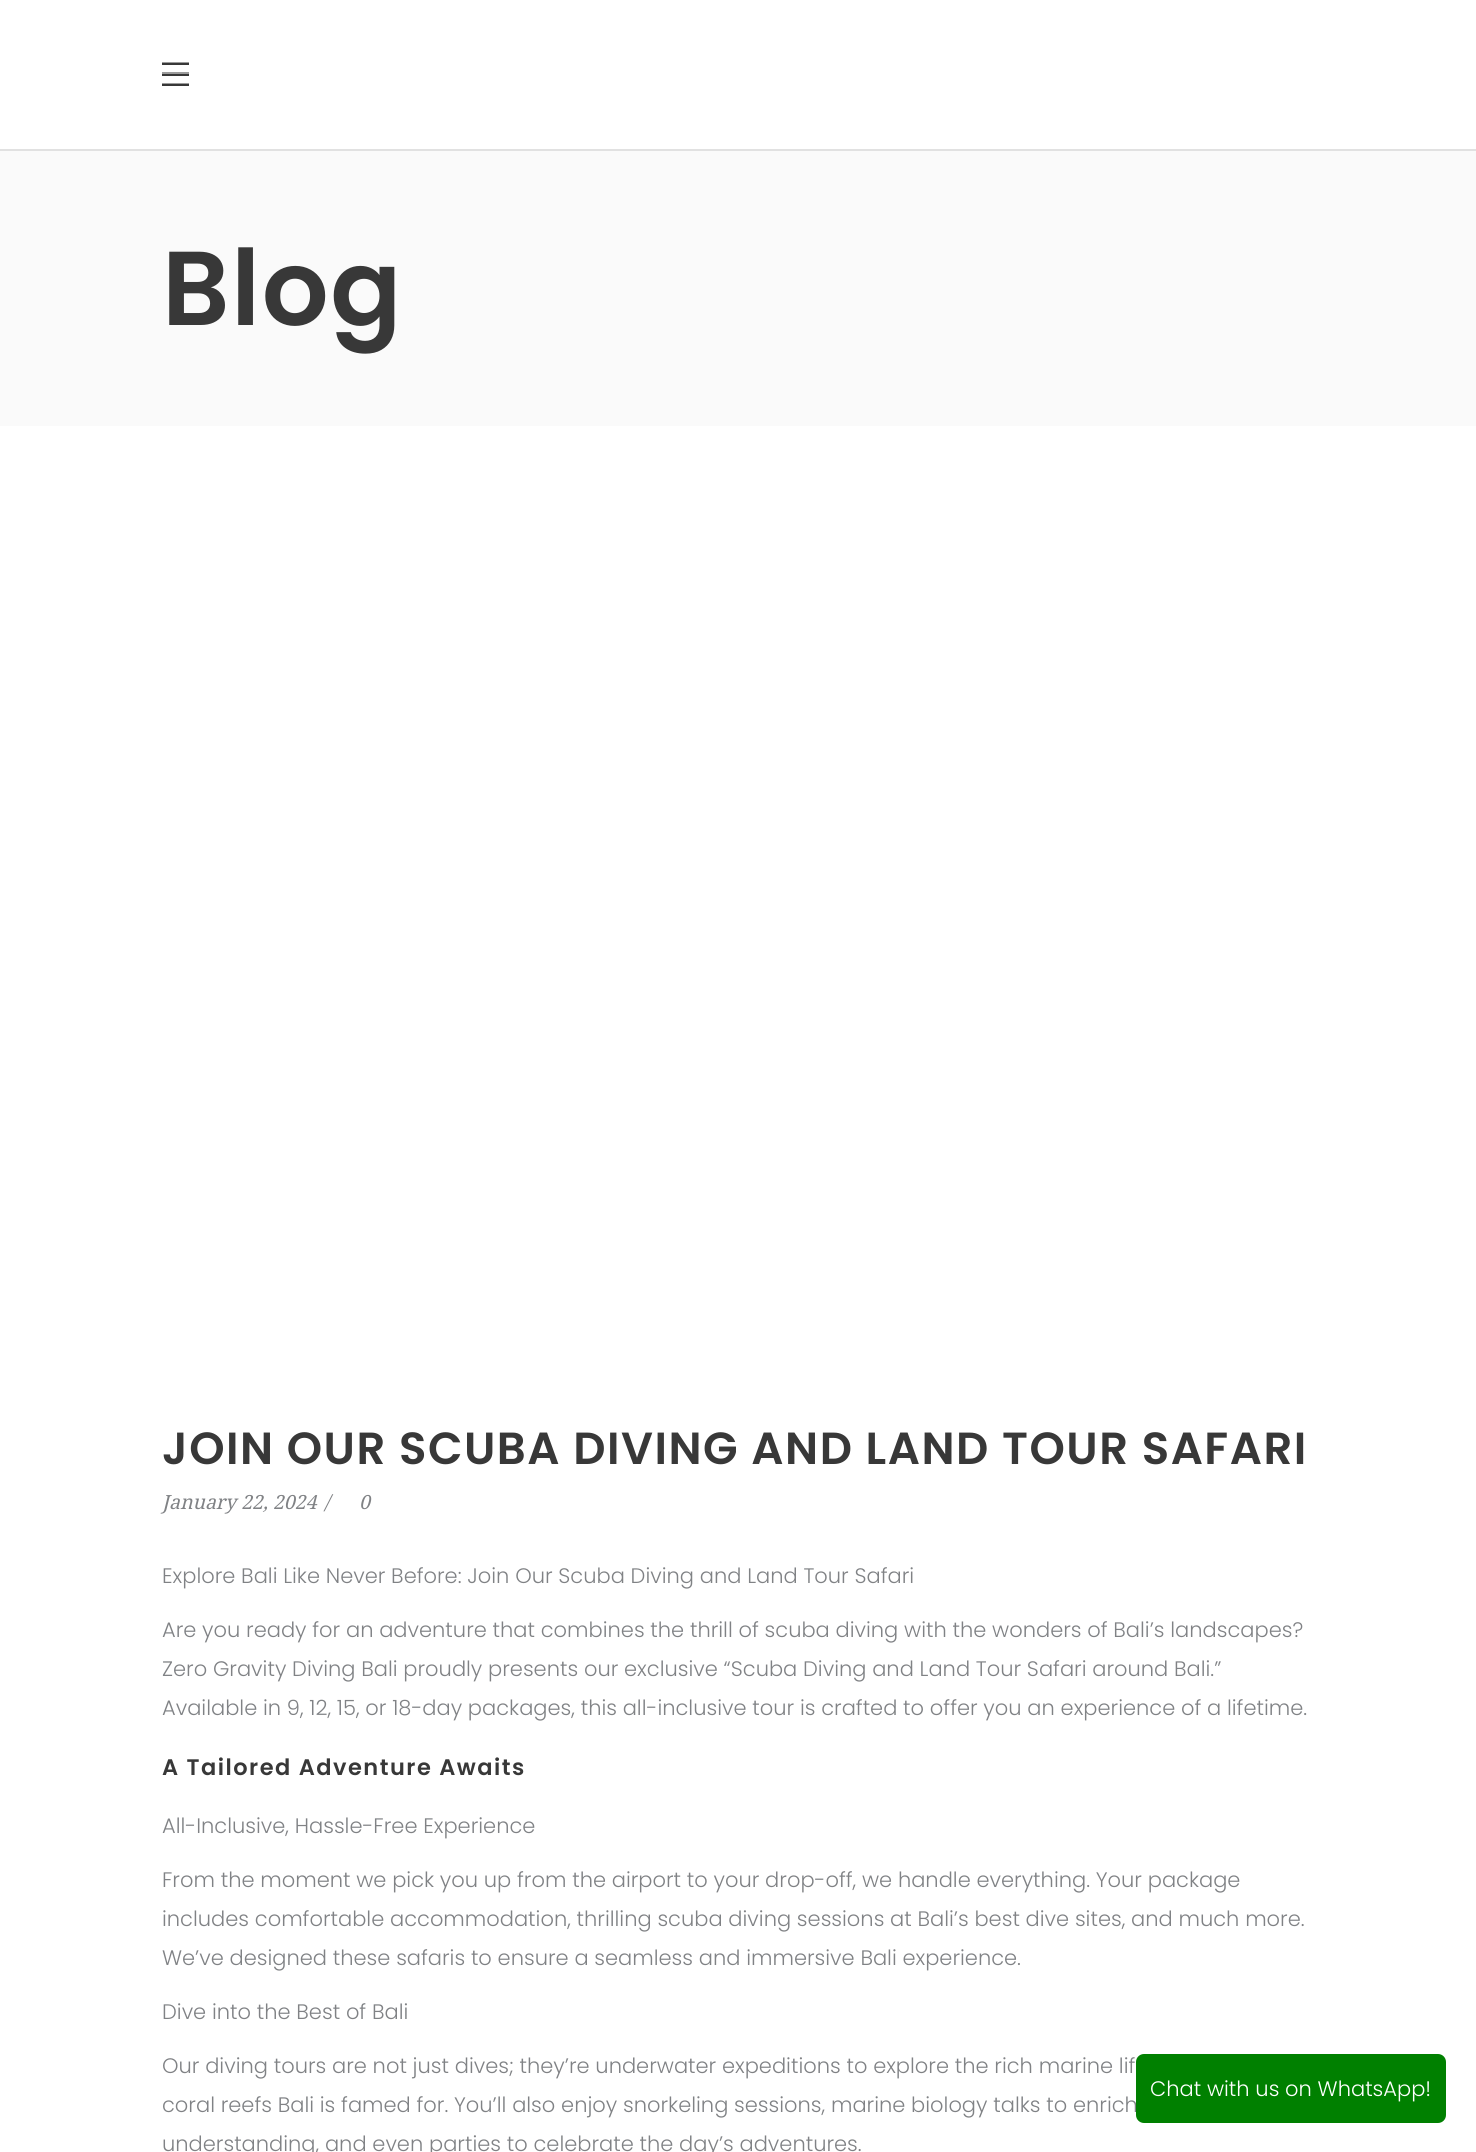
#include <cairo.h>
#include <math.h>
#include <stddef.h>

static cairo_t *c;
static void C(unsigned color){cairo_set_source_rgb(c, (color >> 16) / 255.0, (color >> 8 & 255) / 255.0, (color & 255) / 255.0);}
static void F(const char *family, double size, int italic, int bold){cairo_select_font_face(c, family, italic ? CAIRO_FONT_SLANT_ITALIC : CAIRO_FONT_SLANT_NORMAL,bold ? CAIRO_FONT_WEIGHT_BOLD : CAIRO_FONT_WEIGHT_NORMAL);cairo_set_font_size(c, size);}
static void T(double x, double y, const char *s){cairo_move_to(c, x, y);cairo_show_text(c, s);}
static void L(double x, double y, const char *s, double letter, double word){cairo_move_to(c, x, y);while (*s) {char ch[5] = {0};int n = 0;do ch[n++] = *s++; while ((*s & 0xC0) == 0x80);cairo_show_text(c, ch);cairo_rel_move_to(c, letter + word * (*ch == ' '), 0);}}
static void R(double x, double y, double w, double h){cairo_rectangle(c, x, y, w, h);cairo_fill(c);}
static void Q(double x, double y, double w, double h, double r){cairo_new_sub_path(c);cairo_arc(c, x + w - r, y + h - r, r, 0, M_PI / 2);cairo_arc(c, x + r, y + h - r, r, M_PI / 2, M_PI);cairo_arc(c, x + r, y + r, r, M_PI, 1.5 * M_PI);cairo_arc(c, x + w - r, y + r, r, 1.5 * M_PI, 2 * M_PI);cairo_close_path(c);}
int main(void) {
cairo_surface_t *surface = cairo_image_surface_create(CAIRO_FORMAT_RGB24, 1476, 2152);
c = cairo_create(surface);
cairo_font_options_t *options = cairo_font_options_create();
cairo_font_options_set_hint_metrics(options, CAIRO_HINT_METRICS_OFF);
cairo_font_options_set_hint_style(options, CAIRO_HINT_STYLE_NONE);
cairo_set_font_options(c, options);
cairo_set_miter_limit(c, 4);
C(0xffffff);
cairo_paint(c);
C(0x9c9c9c);
R(162,83,27,1);
R(162,62,27,1);
C(0xe1e1e1);
R(0,149,1476,2);
C(0x383838);
R(162,63,27,2);
R(162,74,27,2);
C(0x9c9c9c);
R(162,72,27,2);
C(0x383838);
R(162,84,27,2);
C(0xfafafa);
R(0,151,1476,275);
F("Poppins SemiBold",105,0,0);
C(0x383838);
L(162,325,"Blog",1.5,0);
F("Poppins SemiBold",45,0,0);
L(162,1464,"JOIN OUR SCUBA DIVING AND LAND TOUR SAFARI",1.5,0);
F("Droid Serif",19.5,1,0);
C(0x808285);
T(162,1509,"January 22, 2024");
T(324,1509,"/");
T(359,1509,"0");
F("Poppins Light",21,0,0);
T(162,1583,"Explore Bali Like Never Before: Join Our Scuba Diving and Land Tour Safari");
T(162,1637,"Are you ready for an adventure that combines the thrill of scuba diving with the wonders of Bali’s landscapes?");
T(162,1676,"Zero Gravity Diving Bali proudly presents our exclusive “Scuba Diving and Land Tour Safari around Bali.”");
T(162,1715,"Available in 9, 12, 15, or 18-day packages, this all-inclusive tour is crafted to offer you an experience of a lifetime.");
F("Poppins SemiBold",22.5,0,0);
C(0x383838);
L(162,1775,"A Tailored Adventure Awaits",1.5,0);
F("Poppins Light",21,0,0);
C(0x808285);
T(162,1833,"All-Inclusive, Hassle-Free Experience");
T(162,1887,"From the moment we pick you up from the airport to your drop-off, we handle everything. Your package");
T(162,1926,"includes comfortable accommodation, thrilling scuba diving sessions at Bali’s best dive sites, and much more.");
T(162,1965,"We’ve designed these safaris to ensure a seamless and immersive Bali experience.");
T(162,2019,"Dive into the Best of Bali");
T(162,2073,"Our diving tours are not just dives; they’re underwater expeditions to explore the rich marine lif");
T(162,2112,"coral reefs Bali is famed for. You’ll also enjoy snorkeling sessions, marine biology talks to enrich");
T(162,2151,"understanding, and even parties to celebrate the day’s adventures.");
C(0x008000);
Q(1136,2054,310,69,8);
cairo_fill(c);
C(0xffffff);
T(1150,2096,"Chat with us on WhatsApp!");
cairo_surface_write_to_png(surface, "o.png");
cairo_font_options_destroy(options);
cairo_destroy(c);
cairo_surface_destroy(surface);
return 0;
}
